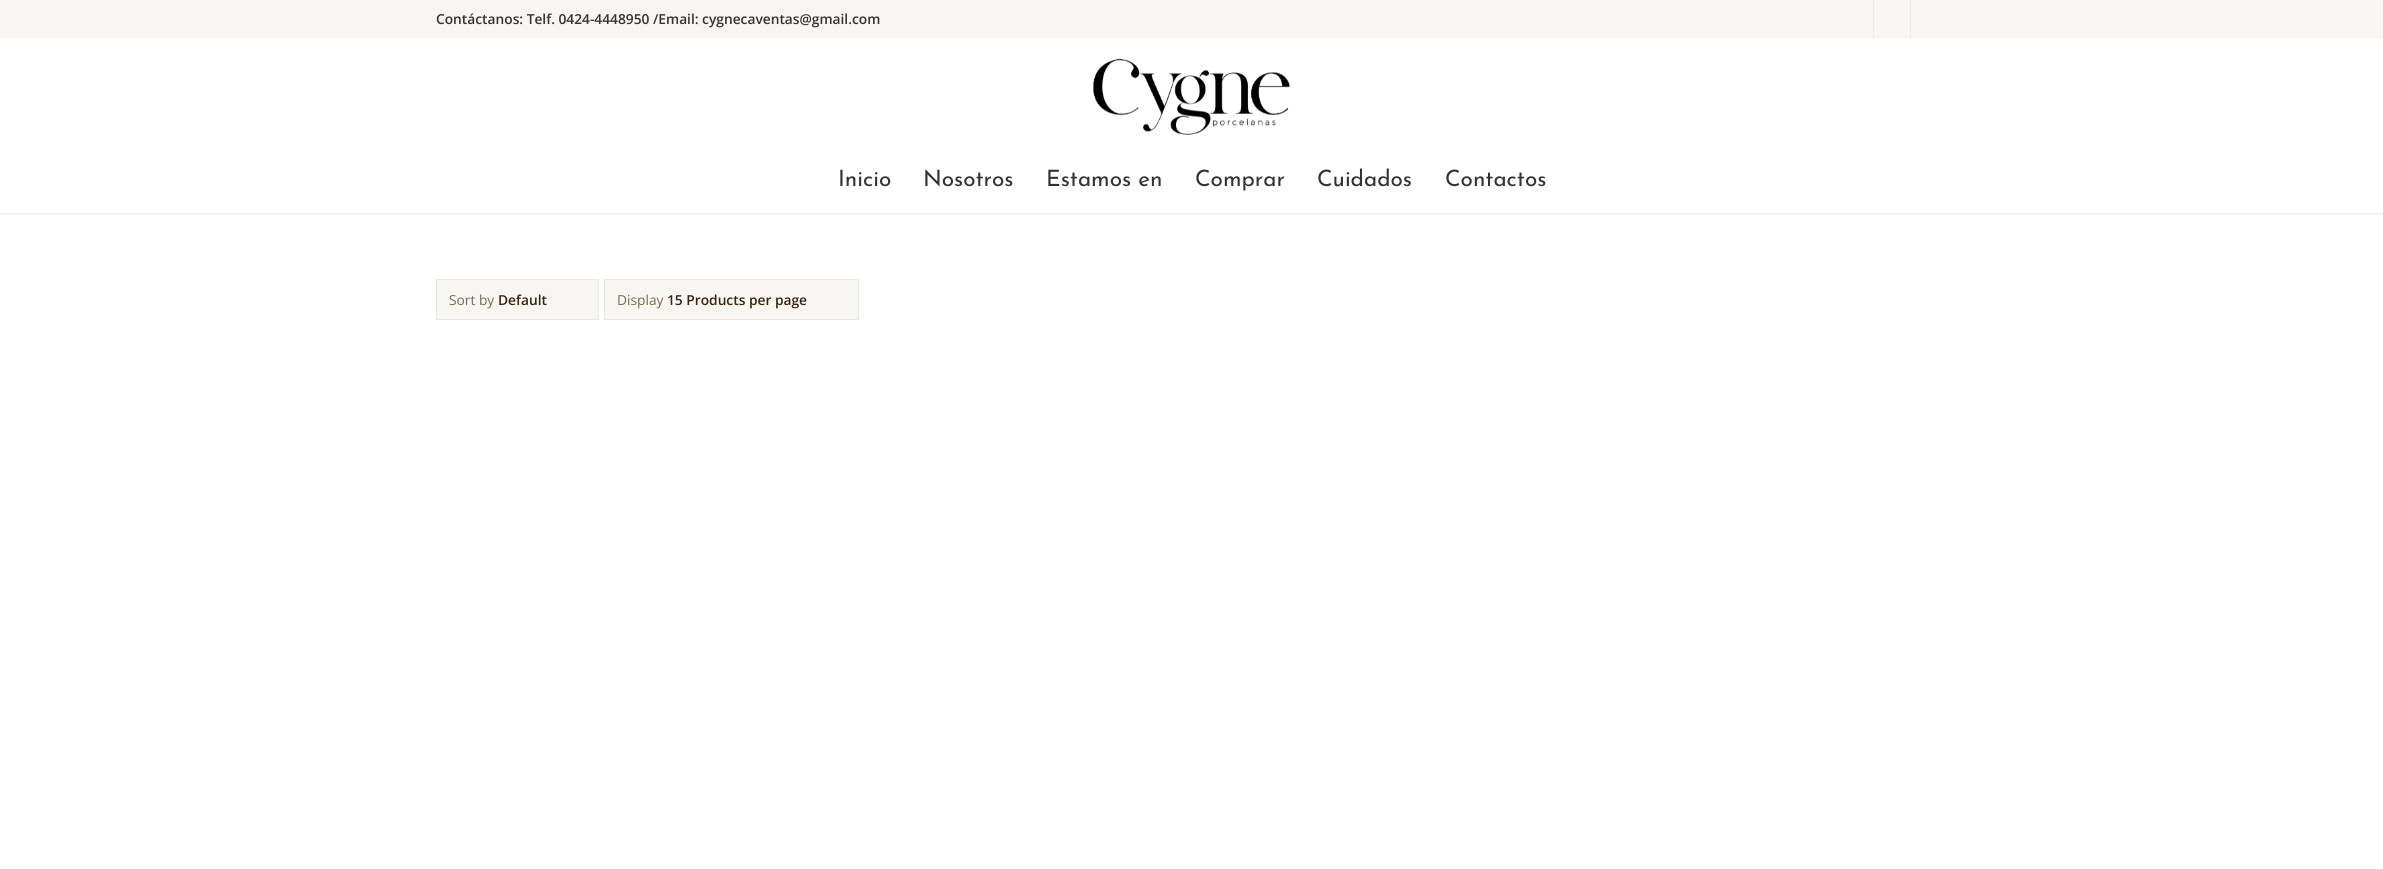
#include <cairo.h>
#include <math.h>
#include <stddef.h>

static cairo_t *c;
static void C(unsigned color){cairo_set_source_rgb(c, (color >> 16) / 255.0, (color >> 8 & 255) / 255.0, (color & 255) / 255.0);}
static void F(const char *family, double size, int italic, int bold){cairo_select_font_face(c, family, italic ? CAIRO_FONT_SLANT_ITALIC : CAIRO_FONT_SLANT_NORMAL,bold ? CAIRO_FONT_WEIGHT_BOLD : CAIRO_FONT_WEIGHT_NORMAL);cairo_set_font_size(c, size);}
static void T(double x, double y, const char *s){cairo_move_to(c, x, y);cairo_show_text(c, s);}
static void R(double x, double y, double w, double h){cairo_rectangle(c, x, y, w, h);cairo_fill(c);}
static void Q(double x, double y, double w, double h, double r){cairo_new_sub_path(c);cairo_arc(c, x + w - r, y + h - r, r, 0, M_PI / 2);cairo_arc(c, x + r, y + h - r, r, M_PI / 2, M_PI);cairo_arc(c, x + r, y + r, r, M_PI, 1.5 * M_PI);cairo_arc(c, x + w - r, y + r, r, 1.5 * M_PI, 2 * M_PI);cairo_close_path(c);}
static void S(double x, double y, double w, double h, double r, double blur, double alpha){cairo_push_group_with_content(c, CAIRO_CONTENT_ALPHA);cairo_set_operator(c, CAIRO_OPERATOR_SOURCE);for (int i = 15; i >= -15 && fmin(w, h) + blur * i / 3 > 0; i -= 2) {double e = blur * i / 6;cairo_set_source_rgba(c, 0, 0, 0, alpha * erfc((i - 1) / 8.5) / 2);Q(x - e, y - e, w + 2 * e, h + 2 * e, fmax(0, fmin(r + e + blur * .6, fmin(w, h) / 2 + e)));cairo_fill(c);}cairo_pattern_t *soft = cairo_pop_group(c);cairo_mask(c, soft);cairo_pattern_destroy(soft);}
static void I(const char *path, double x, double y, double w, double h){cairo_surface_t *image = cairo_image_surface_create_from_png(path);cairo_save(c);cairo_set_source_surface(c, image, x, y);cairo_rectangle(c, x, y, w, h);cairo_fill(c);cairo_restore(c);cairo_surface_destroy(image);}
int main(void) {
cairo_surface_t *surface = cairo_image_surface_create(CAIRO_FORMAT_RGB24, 2383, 869);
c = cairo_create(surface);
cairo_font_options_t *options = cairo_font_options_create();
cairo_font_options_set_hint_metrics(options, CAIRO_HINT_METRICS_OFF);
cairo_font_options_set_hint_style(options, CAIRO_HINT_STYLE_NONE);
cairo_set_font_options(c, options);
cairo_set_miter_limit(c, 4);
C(0xffffff);
cairo_paint(c);
C(0x000000);
S(-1,-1,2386,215,0,1,.1);
C(0xf8f6f2);
R(0,0,2383,38);
F("Open Sans SemiBold",13.75,0,0);
C(0x333333);
T(436,24,"Contáctanos: Telf. 0424-4448950 /Email: cygnecaventas@gmail.com");
C(0xebe8e2);
R(1873,0,1,38);
R(1910,0,1,38);
C(0xffffff);
R(0,38,2383,175);
I("1.png",1093,58,197,77);
F("Josefin Sans Thin",22.5,0,0);
C(0x333333);
T(838,186,"Inicio");
T(923,186,"Nosotros");
T(1046,186,"Estamos en");
T(1195,186,"Comprar");
T(1317,186,"Cuidados");
T(1445,186,"Contactos");
C(0xf8f6f2);
cairo_rectangle(c,436.5,279.5,162,40);
cairo_fill_preserve(c);
C(0xebe8e2);
cairo_set_line_width(c,1);
cairo_stroke(c);
F("Open Sans",13.75,0,0);
C(0x7c6853);
T(449,305,"Sort by");
F("Open Sans SemiBold",13.75,0,0);
C(0x382410);
T(498,305,"Default");
C(0xf8f6f2);
cairo_rectangle(c,604.5,279.5,254,40);
cairo_fill_preserve(c);
C(0xebe8e2);
cairo_stroke(c);
F("Open Sans",13.75,0,0);
C(0x7c6853);
T(617,305,"Display");
F("Open Sans SemiBold",13.75,0,0);
C(0x382410);
T(667,305,"15 Products per page");
cairo_surface_write_to_png(surface, "o.png");
cairo_font_options_destroy(options);
cairo_destroy(c);
cairo_surface_destroy(surface);
return 0;
}
